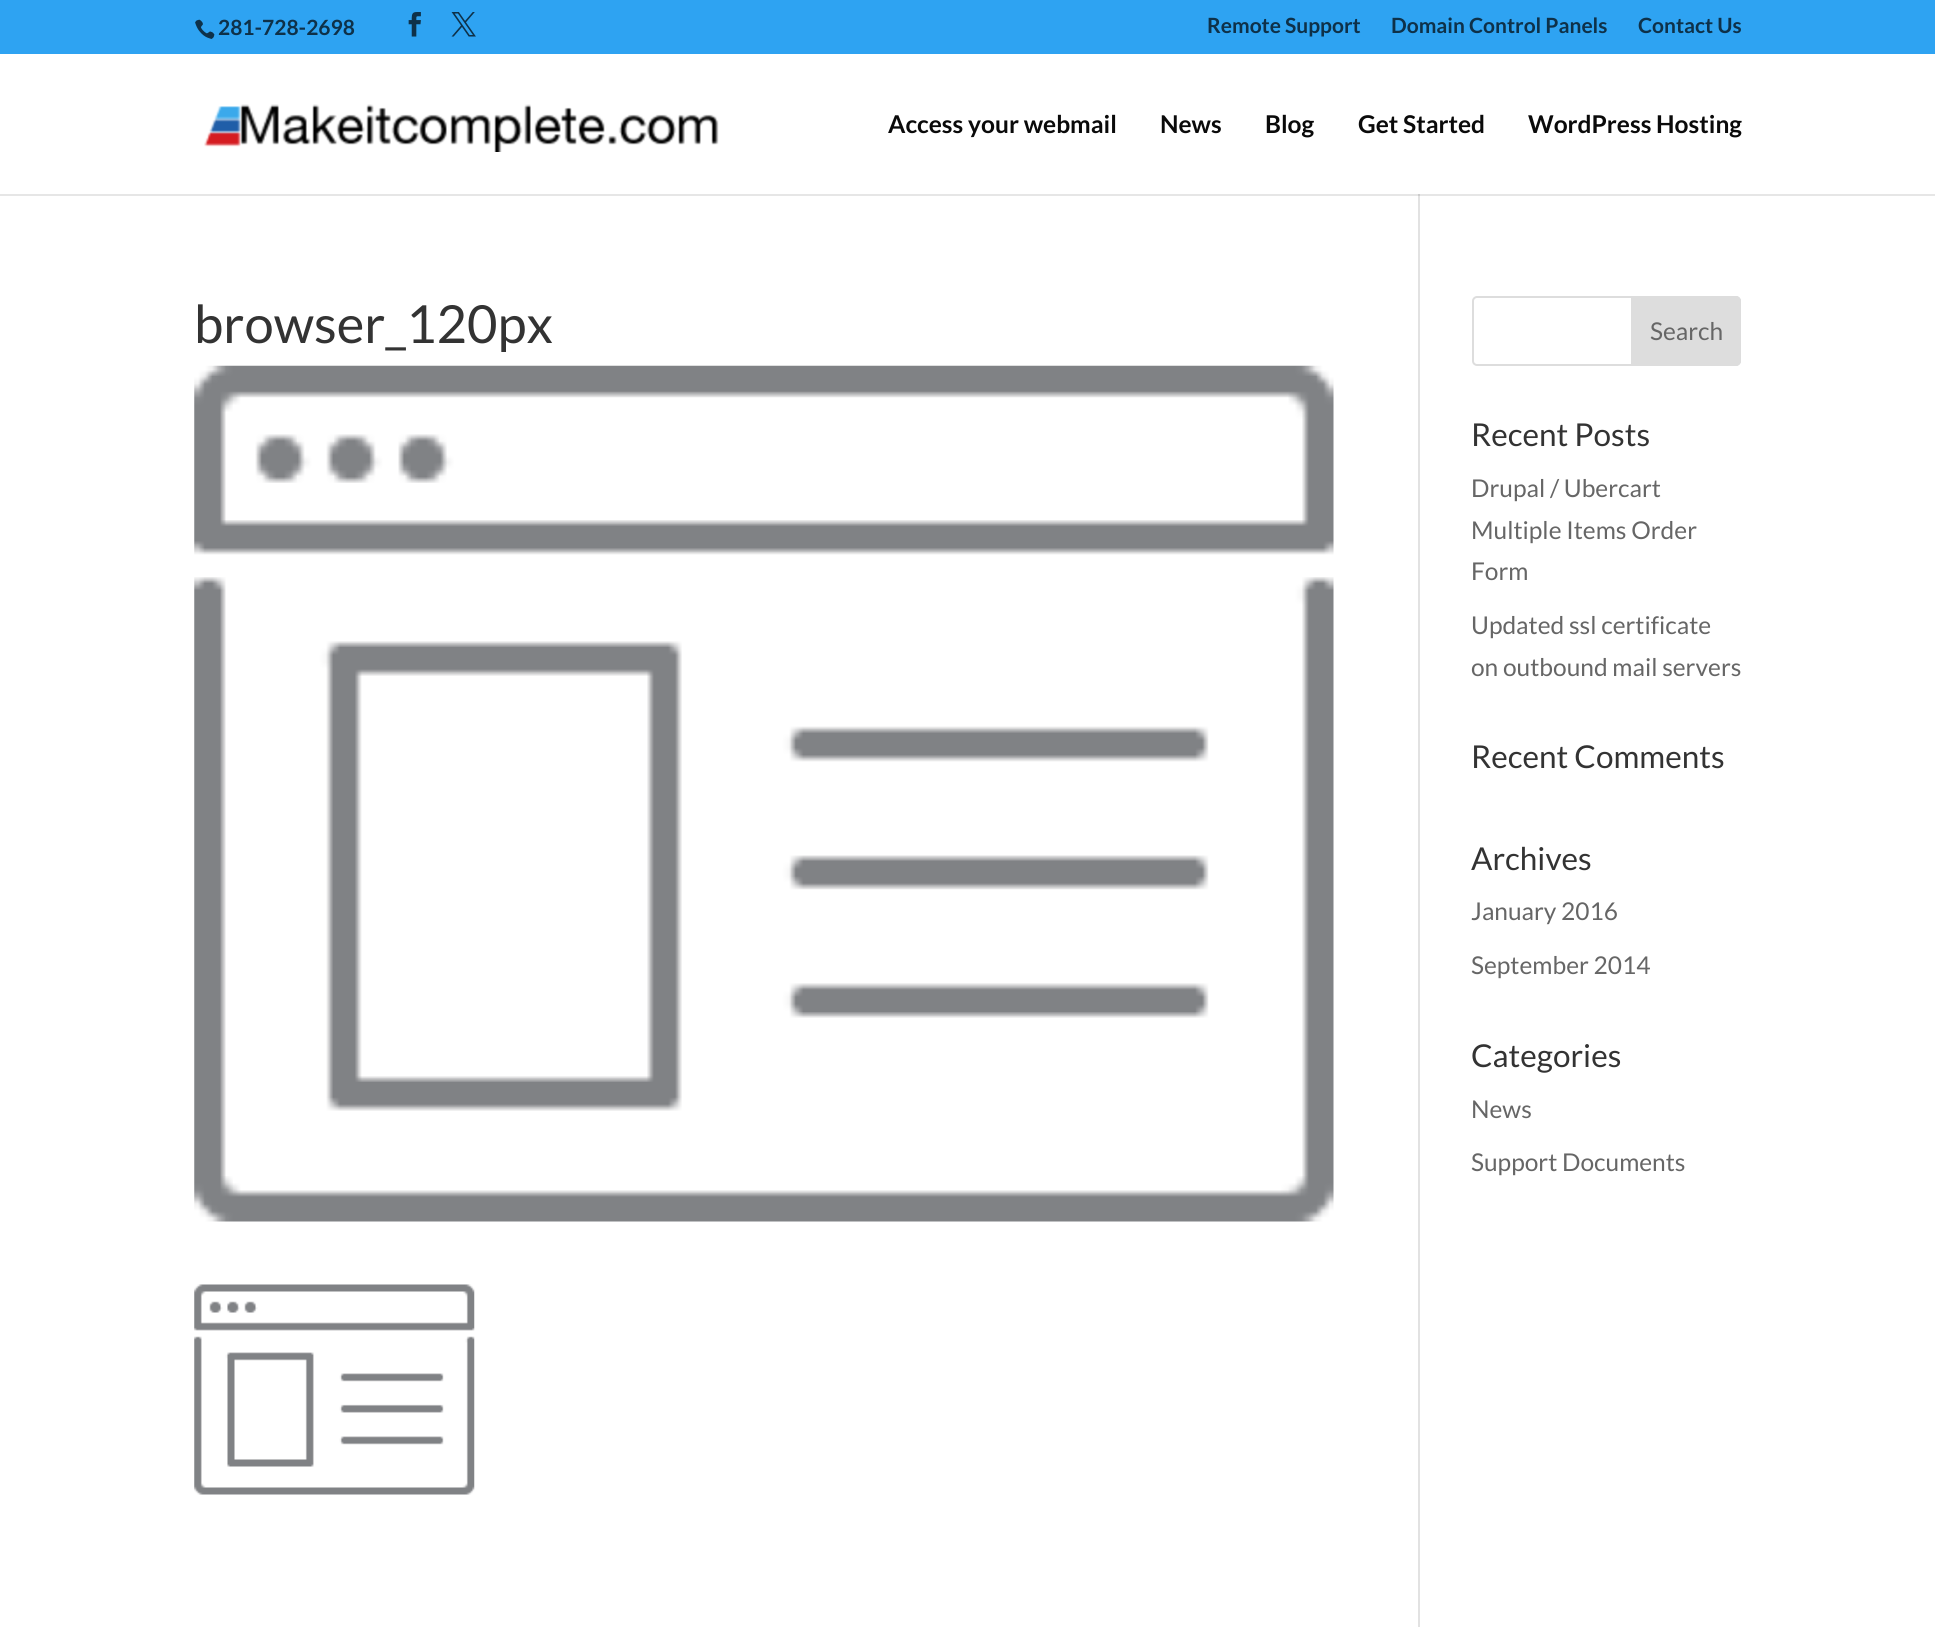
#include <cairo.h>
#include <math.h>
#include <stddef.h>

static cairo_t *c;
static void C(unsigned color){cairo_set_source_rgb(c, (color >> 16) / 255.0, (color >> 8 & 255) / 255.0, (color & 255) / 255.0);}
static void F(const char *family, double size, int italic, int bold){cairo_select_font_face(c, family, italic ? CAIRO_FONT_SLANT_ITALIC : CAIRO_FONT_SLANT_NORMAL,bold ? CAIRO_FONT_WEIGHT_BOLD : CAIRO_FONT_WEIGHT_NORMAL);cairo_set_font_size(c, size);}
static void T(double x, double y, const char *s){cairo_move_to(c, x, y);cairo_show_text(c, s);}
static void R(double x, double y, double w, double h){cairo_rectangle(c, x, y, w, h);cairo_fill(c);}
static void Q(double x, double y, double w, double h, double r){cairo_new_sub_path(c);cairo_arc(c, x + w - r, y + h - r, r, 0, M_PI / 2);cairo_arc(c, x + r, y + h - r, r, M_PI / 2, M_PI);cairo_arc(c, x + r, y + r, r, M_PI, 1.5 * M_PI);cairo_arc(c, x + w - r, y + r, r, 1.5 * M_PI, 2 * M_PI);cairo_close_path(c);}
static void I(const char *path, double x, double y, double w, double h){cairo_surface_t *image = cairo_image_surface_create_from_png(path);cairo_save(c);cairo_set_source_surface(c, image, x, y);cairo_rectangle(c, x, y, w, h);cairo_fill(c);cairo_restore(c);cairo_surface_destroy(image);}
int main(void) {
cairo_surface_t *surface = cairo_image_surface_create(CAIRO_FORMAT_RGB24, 1935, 1627);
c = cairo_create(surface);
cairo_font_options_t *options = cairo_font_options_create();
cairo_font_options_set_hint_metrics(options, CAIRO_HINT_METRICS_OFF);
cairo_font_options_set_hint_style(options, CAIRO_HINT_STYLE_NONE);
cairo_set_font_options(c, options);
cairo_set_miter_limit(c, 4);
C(0x2ea3f2);
cairo_paint(c);
I("1.png",195,19,20,20);
F("Lato",21,0,1);
C(0x0e3149);
T(218,35,"281-728-2698");
I("2.png",408,12,13,25);
I("3.png",451,12,25,25);
T(1207,33,"Remote Support");
T(1391,33,"Domain Control Panels");
T(1638,33,"Contact Us");
C(0xffffff);
R(0,54,1935,1573);
C(0xe2e2e2);
R(1418,194,2,1433);
cairo_set_source_rgba(c,0,0,0,0.1);
cairo_new_path(c);
cairo_move_to(c,0,194);
cairo_line_to(c,0,196);
cairo_line_to(c,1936,196);
cairo_line_to(c,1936,56);
cairo_line_to(c,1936,194);
cairo_close_path(c);
cairo_fill(c);
I("4.png",204,104,515,48);
F("Lato",24.5,0,1);
C(0x0a0a0a);
T(888,133,"Access your webmail");
T(1160,133,"News");
T(1265,133,"Blog");
T(1358,133,"Get Started");
T(1528,133,"WordPress Hosting");
F("Lato",52.5,0,0);
C(0x333333);
T(194,343,"browser_120px");
I("5.png",194,365,1140,857);
I("6.png",194,1284,281,211);
Q(1473,297,267,68,4);
C(0xdddddd);
cairo_stroke(c);
cairo_new_path(c);
cairo_move_to(c,1632,297);
cairo_line_to(c,1736,297);
cairo_curve_to(c,1738,297,1740,299,1740,301);
cairo_line_to(c,1740,361);
cairo_curve_to(c,1740,363,1738,365,1736,365);
cairo_line_to(c,1632,365);
cairo_close_path(c);
cairo_fill_preserve(c);
cairo_stroke(c);
F("Lato",24.5,0,0);
C(0x666666);
T(1650,340,"Search");
F("Lato",31.5,0,0);
C(0x333333);
T(1471,446,"Recent Posts");
F("Lato",24.5,0,0);
C(0x666666);
T(1471,497,"Drupal / Ubercart");
T(1471,539,"Multiple Items Order");
T(1471,580,"Form");
T(1471,634,"Updated ssl certificate");
T(1471,676,"on outbound mail servers");
F("Lato",31.5,0,0);
C(0x333333);
T(1471,768,"Recent Comments");
T(1471,870,"Archives");
F("Lato",24.5,0,0);
C(0x666666);
T(1471,920,"January 2016");
T(1471,974,"September 2014");
F("Lato",31.5,0,0);
C(0x333333);
T(1471,1067,"Categories");
F("Lato",24.5,0,0);
C(0x666666);
T(1471,1118,"News");
T(1471,1171,"Support Documents");
cairo_surface_write_to_png(surface, "o.png");
cairo_font_options_destroy(options);
cairo_destroy(c);
cairo_surface_destroy(surface);
return 0;
}
